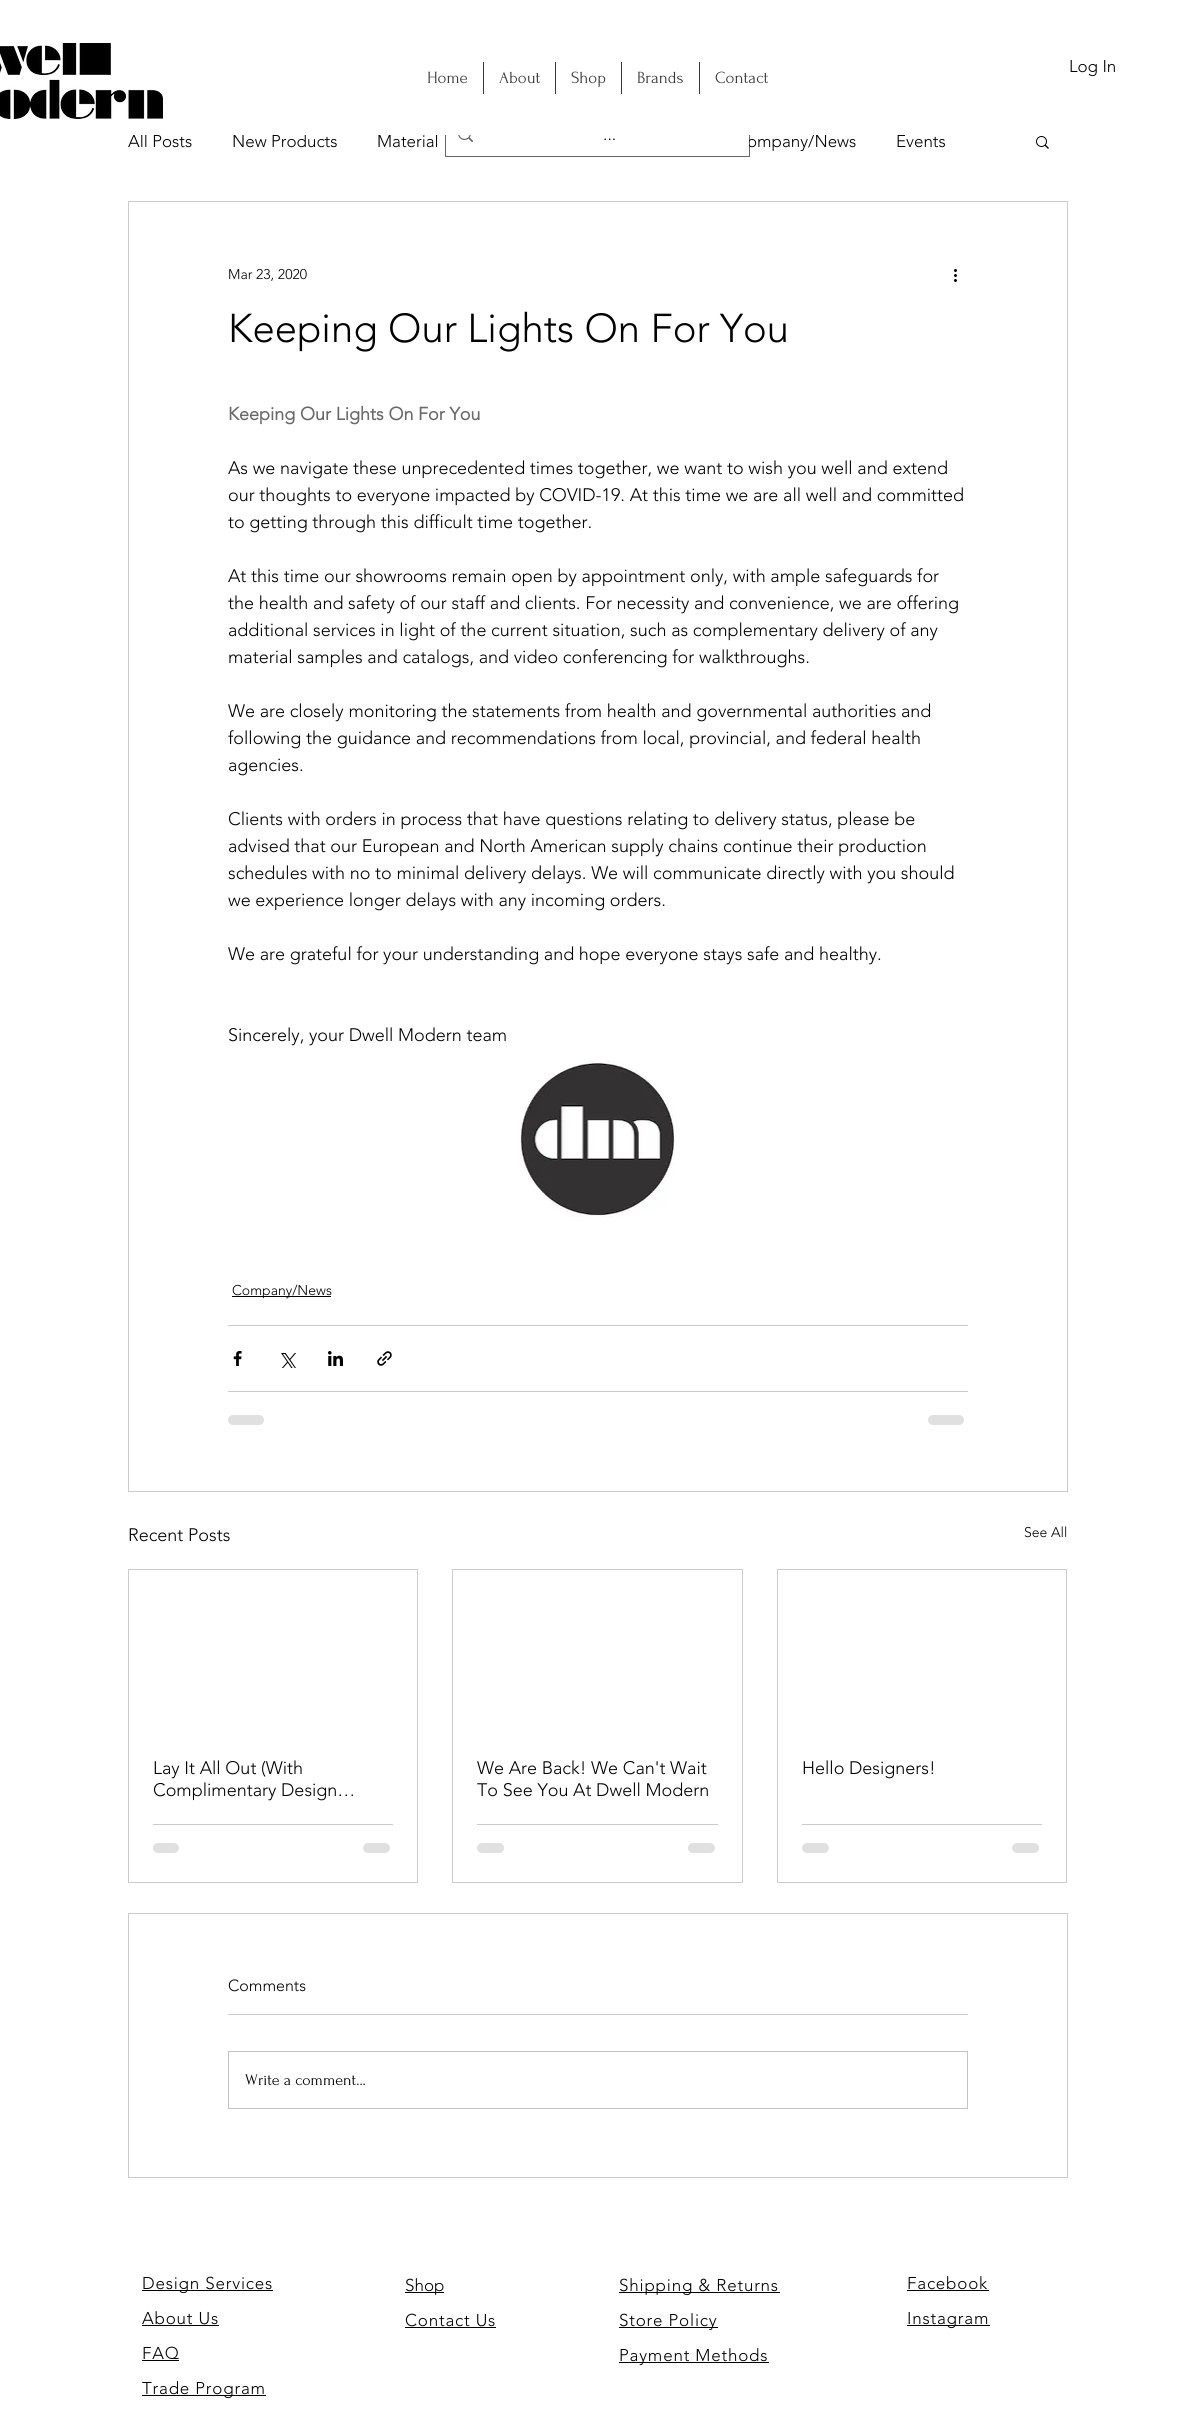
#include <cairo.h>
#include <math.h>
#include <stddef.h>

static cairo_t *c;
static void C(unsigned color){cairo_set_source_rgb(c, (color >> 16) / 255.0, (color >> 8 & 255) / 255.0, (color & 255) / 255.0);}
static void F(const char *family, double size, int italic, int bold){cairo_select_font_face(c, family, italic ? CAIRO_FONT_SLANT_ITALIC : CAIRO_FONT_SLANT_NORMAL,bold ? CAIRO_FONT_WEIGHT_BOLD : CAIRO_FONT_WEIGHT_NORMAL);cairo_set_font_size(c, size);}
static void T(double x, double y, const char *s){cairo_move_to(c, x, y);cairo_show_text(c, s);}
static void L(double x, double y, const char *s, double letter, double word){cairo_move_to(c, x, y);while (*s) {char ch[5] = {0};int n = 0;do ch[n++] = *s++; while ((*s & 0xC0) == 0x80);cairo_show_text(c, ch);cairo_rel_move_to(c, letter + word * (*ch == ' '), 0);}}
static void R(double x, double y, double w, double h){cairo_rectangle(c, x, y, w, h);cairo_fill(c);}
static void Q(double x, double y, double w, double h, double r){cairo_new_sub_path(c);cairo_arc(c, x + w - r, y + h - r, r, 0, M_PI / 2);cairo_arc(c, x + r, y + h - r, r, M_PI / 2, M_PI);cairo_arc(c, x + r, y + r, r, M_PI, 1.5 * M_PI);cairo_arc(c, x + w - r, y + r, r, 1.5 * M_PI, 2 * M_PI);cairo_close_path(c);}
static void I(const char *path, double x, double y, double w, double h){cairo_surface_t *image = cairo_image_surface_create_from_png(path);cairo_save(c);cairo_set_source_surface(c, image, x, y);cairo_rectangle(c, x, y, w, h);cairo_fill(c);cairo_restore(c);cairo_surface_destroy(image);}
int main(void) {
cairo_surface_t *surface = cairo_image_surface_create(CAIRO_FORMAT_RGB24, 1195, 2411);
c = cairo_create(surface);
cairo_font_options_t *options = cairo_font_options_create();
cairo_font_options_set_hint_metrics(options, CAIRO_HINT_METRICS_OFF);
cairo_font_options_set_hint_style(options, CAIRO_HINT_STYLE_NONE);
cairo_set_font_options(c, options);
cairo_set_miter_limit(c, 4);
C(0xffffff);
cairo_paint(c);
F("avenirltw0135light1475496 Light",17,0,0);
C(0x000000);
T(1069,72,"Log In");
T(128,147,"All Posts");
T(232,147,"New Products");
T(377,147,"Material");
T(747,147,"ompany/News");
T(896,147,"Events");
cairo_rectangle(c,445.5,112.5,304,44);
cairo_set_source_rgba(c,0,0,0,0.6);
cairo_set_line_width(c,1);
cairo_stroke(c);
C(0xffffff);
R(132,112,773,23);
I("1.png",0,43,163,76);
F("Forum",17,0,0);
C(0x3b3737);
T(427,83,"Home");
R(483,62,1,32);
T(499,83,"About");
R(555,62,1,32);
T(571,83,"Shop");
R(621,62,1,32);
T(637,83,"Brands");
R(699,62,1,32);
T(715,83,"Contact");
I("2.png",1036,136,13,13);
cairo_rectangle(c,128.5,201.5,939,1290);
C(0xcccccc);
cairo_stroke(c);
F("avenirltw0135light1475496 Light",14,0,0);
C(0x000000);
T(228,279,"Mar 23, 2020");
I("3.png",954,269,3,13);
F("avenirltw0135light1475496 Light",40,0,0);
T(228,342,"Keeping Our Lights On For You");
F("avenirltw0135light1475496",18,0,1);
C(0x696969);
T(228,420,"Keeping Our Lights On For You");
F("avenirltw0135light1475496 Light",18,0,0);
C(0x000000);
T(228,474,"As we navigate these unprecedented times together, we want to wish you well and extend");
T(228,501,"our thoughts to everyone impacted by COVID-19. At this time we are all well and committed");
T(228,528,"to getting through this difficult time together.");
T(228,582,"At this time our showrooms remain open by appointment only, with ample safeguards for");
T(228,609,"the health and safety of our staff and clients. For necessity and convenience, we are offering");
T(228,636,"additional services in light of the current situation, such as complementary delivery of any");
T(228,663,"material samples and catalogs, and video conferencing for walkthroughs.");
T(228,717,"We are closely monitoring the statements from health and governmental authorities and");
T(228,744,"following the guidance and recommendations from local, provincial, and federal health");
T(228,771,"agencies.");
T(228,825,"Clients with orders in process that have questions relating to delivery status, please be");
T(228,852,"advised that our European and North American supply chains continue their production");
T(228,879,"schedules with no to minimal delivery delays. We will communicate directly with you should");
T(228,906,"we experience longer delays with any incoming orders.");
T(228,960,"We are grateful for your understanding and hope everyone stays safe and healthy.");
T(228,1041,"Sincerely, your Dwell Modern team");
I("4.png",520,1061,157,156);
R(232,1296,99,1);
F("avenirltw0135light1475496 Light",14,0,0);
T(232,1295,"Company/News");
C(0xcccccc);
R(228,1325,740,1);
I("5.png",233,1351,9,15);
I("6.png",281,1353,15,15);
I("7.png",328,1351,15,15);
I("8.png",377,1351,15,15);
R(228,1391,740,1);
C(0xe0e0e0);
Q(228,1415,36,10,5);
cairo_fill(c);
Q(928,1415,36,10,5);
cairo_fill(c);
F("avenirltw0135light1475496 Light",18,0,0);
C(0x000000);
T(128,1541,"Recent Posts");
F("avenirltw0135light1475496 Light",14,0,0);
T(1024,1537,"See All");
cairo_rectangle(c,128.5,1569.5,289,313);
C(0xcccccc);
cairo_stroke(c);
F("avenirltw0135light1475496 Light",18,0,0);
C(0x000000);
T(153,1774,"Lay It All Out (With");
T(153,1796,"Complimentary Design…");
C(0xcccccc);
R(153,1824,240,1);
C(0xe0e0e0);
Q(153,1843,26,10,5);
cairo_fill(c);
Q(363,1843,27,10,5);
cairo_fill(c);
cairo_rectangle(c,452.5,1569.5,290,313);
C(0xcccccc);
cairo_stroke(c);
C(0x000000);
T(477,1774,"We Are Back! We Can't Wait");
T(477,1796,"To See You At Dwell Modern");
C(0xcccccc);
R(477,1824,241,1);
C(0xe0e0e0);
Q(477,1843,27,10,5);
cairo_fill(c);
Q(688,1843,27,10,5);
cairo_fill(c);
cairo_rectangle(c,777.5,1569.5,289,313);
C(0xcccccc);
cairo_stroke(c);
C(0x000000);
T(802,1774,"Hello Designers!");
C(0xcccccc);
R(802,1824,240,1);
C(0xe0e0e0);
Q(802,1843,27,10,5);
cairo_fill(c);
Q(1012,1843,27,10,5);
cairo_fill(c);
cairo_rectangle(c,128.5,1913.5,939,264);
C(0xcccccc);
cairo_stroke(c);
F("avenirltw0135light1475496 Light",16,0,0);
C(0x000000);
T(228,1991,"Comments");
C(0xcccccc);
R(228,2014,740,1);
cairo_rectangle(c,228.5,2051.5,739,57);
C(0xc4c3c3);
cairo_stroke(c);
F("Forum",16,0,0);
C(0x000000);
T(245,2085,"Write a comment...");
C(0xffffff);
R(747,139,2,8);
I("9.png",458,135,15,7);
F("avenirltw0135light1475496 Light",17,0,0);
C(0x000000);
T(603,140,"...");
R(142,2290,131,1);
L(142,2289,"Design Services",.8,0);
L(142,2324,"About Us",.8,0);
R(142,2325,77,1);
L(142,2359,"FAQ",.8,0);
R(142,2360,37,1);
R(142,2395,124,1);
L(142,2394,"Trade Program",.8,0);
R(405,2292,39,1);
T(405,2291,"Shop");
L(405,2326,"Contact Us",.8,0);
R(405,2327,91,1);
R(619,2292,161,1);
L(619,2291,"Shipping & Returns",.8,0);
R(619,2327,99,1);
L(619,2326,"Store Policy",.8,0);
R(619,2362,150,1);
L(619,2361,"Payment Methods",.8,0);
L(907,2289,"Facebook",.8,0);
R(907,2290,82,1);
R(907,2325,83,1);
L(907,2324,"Instagram",.8,0);
cairo_surface_write_to_png(surface, "o.png");
cairo_font_options_destroy(options);
cairo_destroy(c);
cairo_surface_destroy(surface);
return 0;
}
